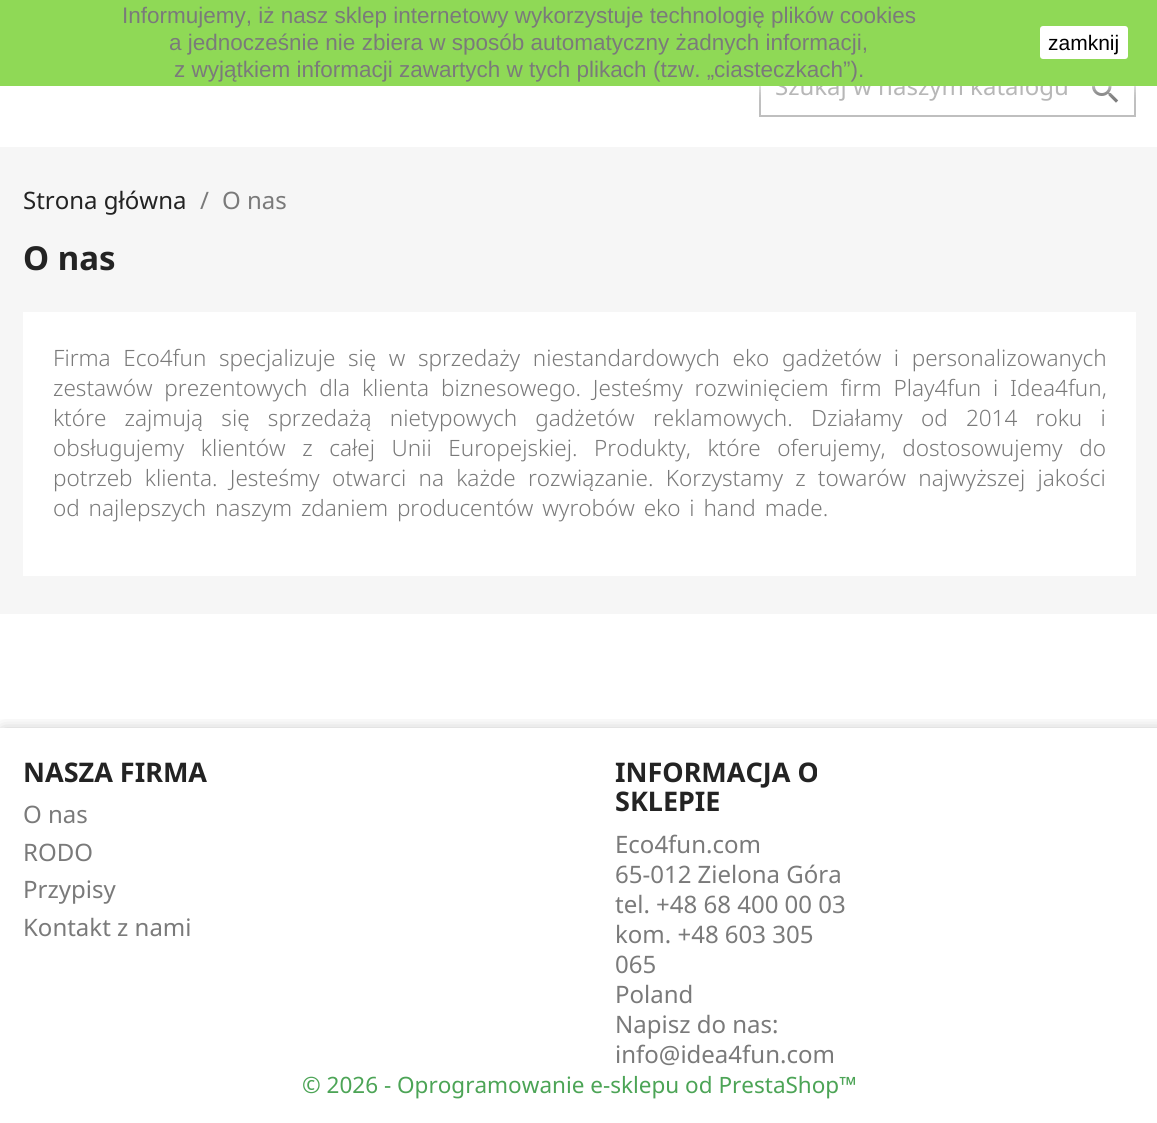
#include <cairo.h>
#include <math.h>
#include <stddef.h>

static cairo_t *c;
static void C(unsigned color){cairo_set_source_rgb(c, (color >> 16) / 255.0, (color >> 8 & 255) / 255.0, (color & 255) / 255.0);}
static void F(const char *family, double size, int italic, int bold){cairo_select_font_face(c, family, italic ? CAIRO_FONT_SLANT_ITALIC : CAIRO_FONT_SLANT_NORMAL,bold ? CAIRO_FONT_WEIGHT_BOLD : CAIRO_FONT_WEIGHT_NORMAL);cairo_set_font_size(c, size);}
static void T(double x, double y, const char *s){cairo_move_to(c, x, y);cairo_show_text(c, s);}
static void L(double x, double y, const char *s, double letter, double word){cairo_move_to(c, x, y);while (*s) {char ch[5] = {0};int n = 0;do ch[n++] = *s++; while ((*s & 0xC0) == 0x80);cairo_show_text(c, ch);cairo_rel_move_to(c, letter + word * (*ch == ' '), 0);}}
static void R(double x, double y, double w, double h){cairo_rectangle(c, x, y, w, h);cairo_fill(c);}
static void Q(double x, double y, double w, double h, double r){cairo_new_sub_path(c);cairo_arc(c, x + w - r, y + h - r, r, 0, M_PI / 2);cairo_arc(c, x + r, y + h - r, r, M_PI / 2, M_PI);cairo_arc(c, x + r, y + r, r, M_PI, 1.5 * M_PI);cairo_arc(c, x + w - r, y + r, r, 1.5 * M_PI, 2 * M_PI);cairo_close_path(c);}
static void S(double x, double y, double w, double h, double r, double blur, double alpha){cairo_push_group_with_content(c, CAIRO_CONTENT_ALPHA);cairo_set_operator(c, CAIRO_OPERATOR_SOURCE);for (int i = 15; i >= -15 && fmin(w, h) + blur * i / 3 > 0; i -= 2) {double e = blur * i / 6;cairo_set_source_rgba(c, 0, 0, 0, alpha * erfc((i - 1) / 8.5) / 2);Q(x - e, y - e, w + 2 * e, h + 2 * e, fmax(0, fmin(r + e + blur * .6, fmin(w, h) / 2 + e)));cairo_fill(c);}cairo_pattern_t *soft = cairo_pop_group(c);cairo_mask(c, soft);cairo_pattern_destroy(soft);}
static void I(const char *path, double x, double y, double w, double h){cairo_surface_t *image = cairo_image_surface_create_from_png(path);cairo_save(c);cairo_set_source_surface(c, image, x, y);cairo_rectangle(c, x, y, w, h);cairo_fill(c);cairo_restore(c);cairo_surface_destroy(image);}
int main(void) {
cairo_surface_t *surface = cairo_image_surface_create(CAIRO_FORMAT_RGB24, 1157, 1123);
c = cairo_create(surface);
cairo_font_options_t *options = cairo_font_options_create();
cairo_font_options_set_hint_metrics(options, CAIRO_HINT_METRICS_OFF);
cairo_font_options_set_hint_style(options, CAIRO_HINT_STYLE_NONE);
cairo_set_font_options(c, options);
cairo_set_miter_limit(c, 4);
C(0xffffff);
cairo_paint(c);
cairo_save(c);
cairo_rectangle(c,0,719,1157,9);
cairo_clip(c);
C(0x000000);
S(3,731,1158,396,0,8,.3);
cairo_restore(c);
cairo_rectangle(c,760,55,375,61);
C(0xbfbfbf);
cairo_stroke(c);
I("1.png",1092,86,27,17);
C(0xffffff);
S(0,0,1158,86,0,7.5,1);
F("Noto Sans",24,0,0);
C(0xb7b7b7);
T(775,95,"Szukaj w naszym katalogu");
C(0x8fd956);
R(0,0,1157,86);
F("Liberation Sans",22.5,0,0);
C(0x7a7a7a);
T(122,23,"Informujemy, iż nasz sklep internetowy wykorzystuje technologię plików cookies");
T(169,50,"a jednocześnie nie zbiera w sposób automatyczny żadnych informacji,");
T(174,77,"z wyjątkiem informacji zawartych w tych plikach (tzw. „ciasteczkach”).");
C(0xffffff);
Q(1040,26,88,33,3);
cairo_fill(c);
F("Liberation Sans",21,0,0);
C(0x000000);
T(1048,50,"zamknij");
F("Noto Sans",27,0,1);
C(0x232323);
T(23,782,"NASZA FIRMA");
F("Noto Sans",24,0,0);
C(0x7a7a7a);
T(23,823,"O nas");
T(23,861,"RODO");
T(23,898,"Przypisy");
T(23,936,"Kontakt z nami");
F("Noto Sans",27,0,1);
C(0x232323);
T(615,782,"INFORMACJA O");
T(615,811,"SKLEPIE");
F("Noto Sans",24,0,0);
C(0x7a7a7a);
T(615,853,"Eco4fun.com");
T(615,883,"65-012 Zielona Góra");
T(615,913,"tel. +48 68 400 00 03");
T(615,943,"kom. +48 603 305");
T(615,973,"065");
T(615,1003,"Poland");
T(615,1033,"Napisz do nas:");
T(615,1063,"info@idea4fun.com");
F("Noto Sans",22.5,0,0);
C(0x4ca456);
T(302,1093,"© 2026 - Oprogramowanie e-sklepu od PrestaShop™");
C(0xf6f6f6);
R(0,147,1157,467);
F("Noto Sans",24,0,0);
C(0x232323);
T(23,209,"Strona główna");
C(0x7a7a7a);
T(200,209,"/");
T(222,209,"O nas");
F("Noto Sans",33,0,1);
C(0x232323);
T(23,270,"O nas");
C(0xffffff);
R(23,312,1113,264);
F("Noto Sans Light",22.5,0,0);
C(0x7a7a7a);
L(53,366,"Firma Eco4fun specjalizuje się w sprzedaży niestandardowych eko gadżetów i personalizowanych",0,6.75);
L(53,396,"zestawów prezentowych dla klienta biznesowego. Jesteśmy rozwinięciem firm Play4fun i Idea4fun,",0,6);
L(53,426,"które zajmują się sprzedażą nietypowych gadżetów reklamowych. Działamy od 2014 roku i",0,12.4);
L(53,456,"obsługujemy klientów z całej Unii Europejskiej. Produkty, które oferujemy, dostosowujemy do",0,10.75);
L(53,486,"potrzeb klienta. Jesteśmy otwarci na każde rozwiązanie. Korzystamy z towarów najwyższej jakości",0,6.4);
L(53,516,"od najlepszych naszym zdaniem producentów wyrobów eko i hand made.",0,3);
cairo_surface_write_to_png(surface, "o.png");
cairo_font_options_destroy(options);
cairo_destroy(c);
cairo_surface_destroy(surface);
return 0;
}
